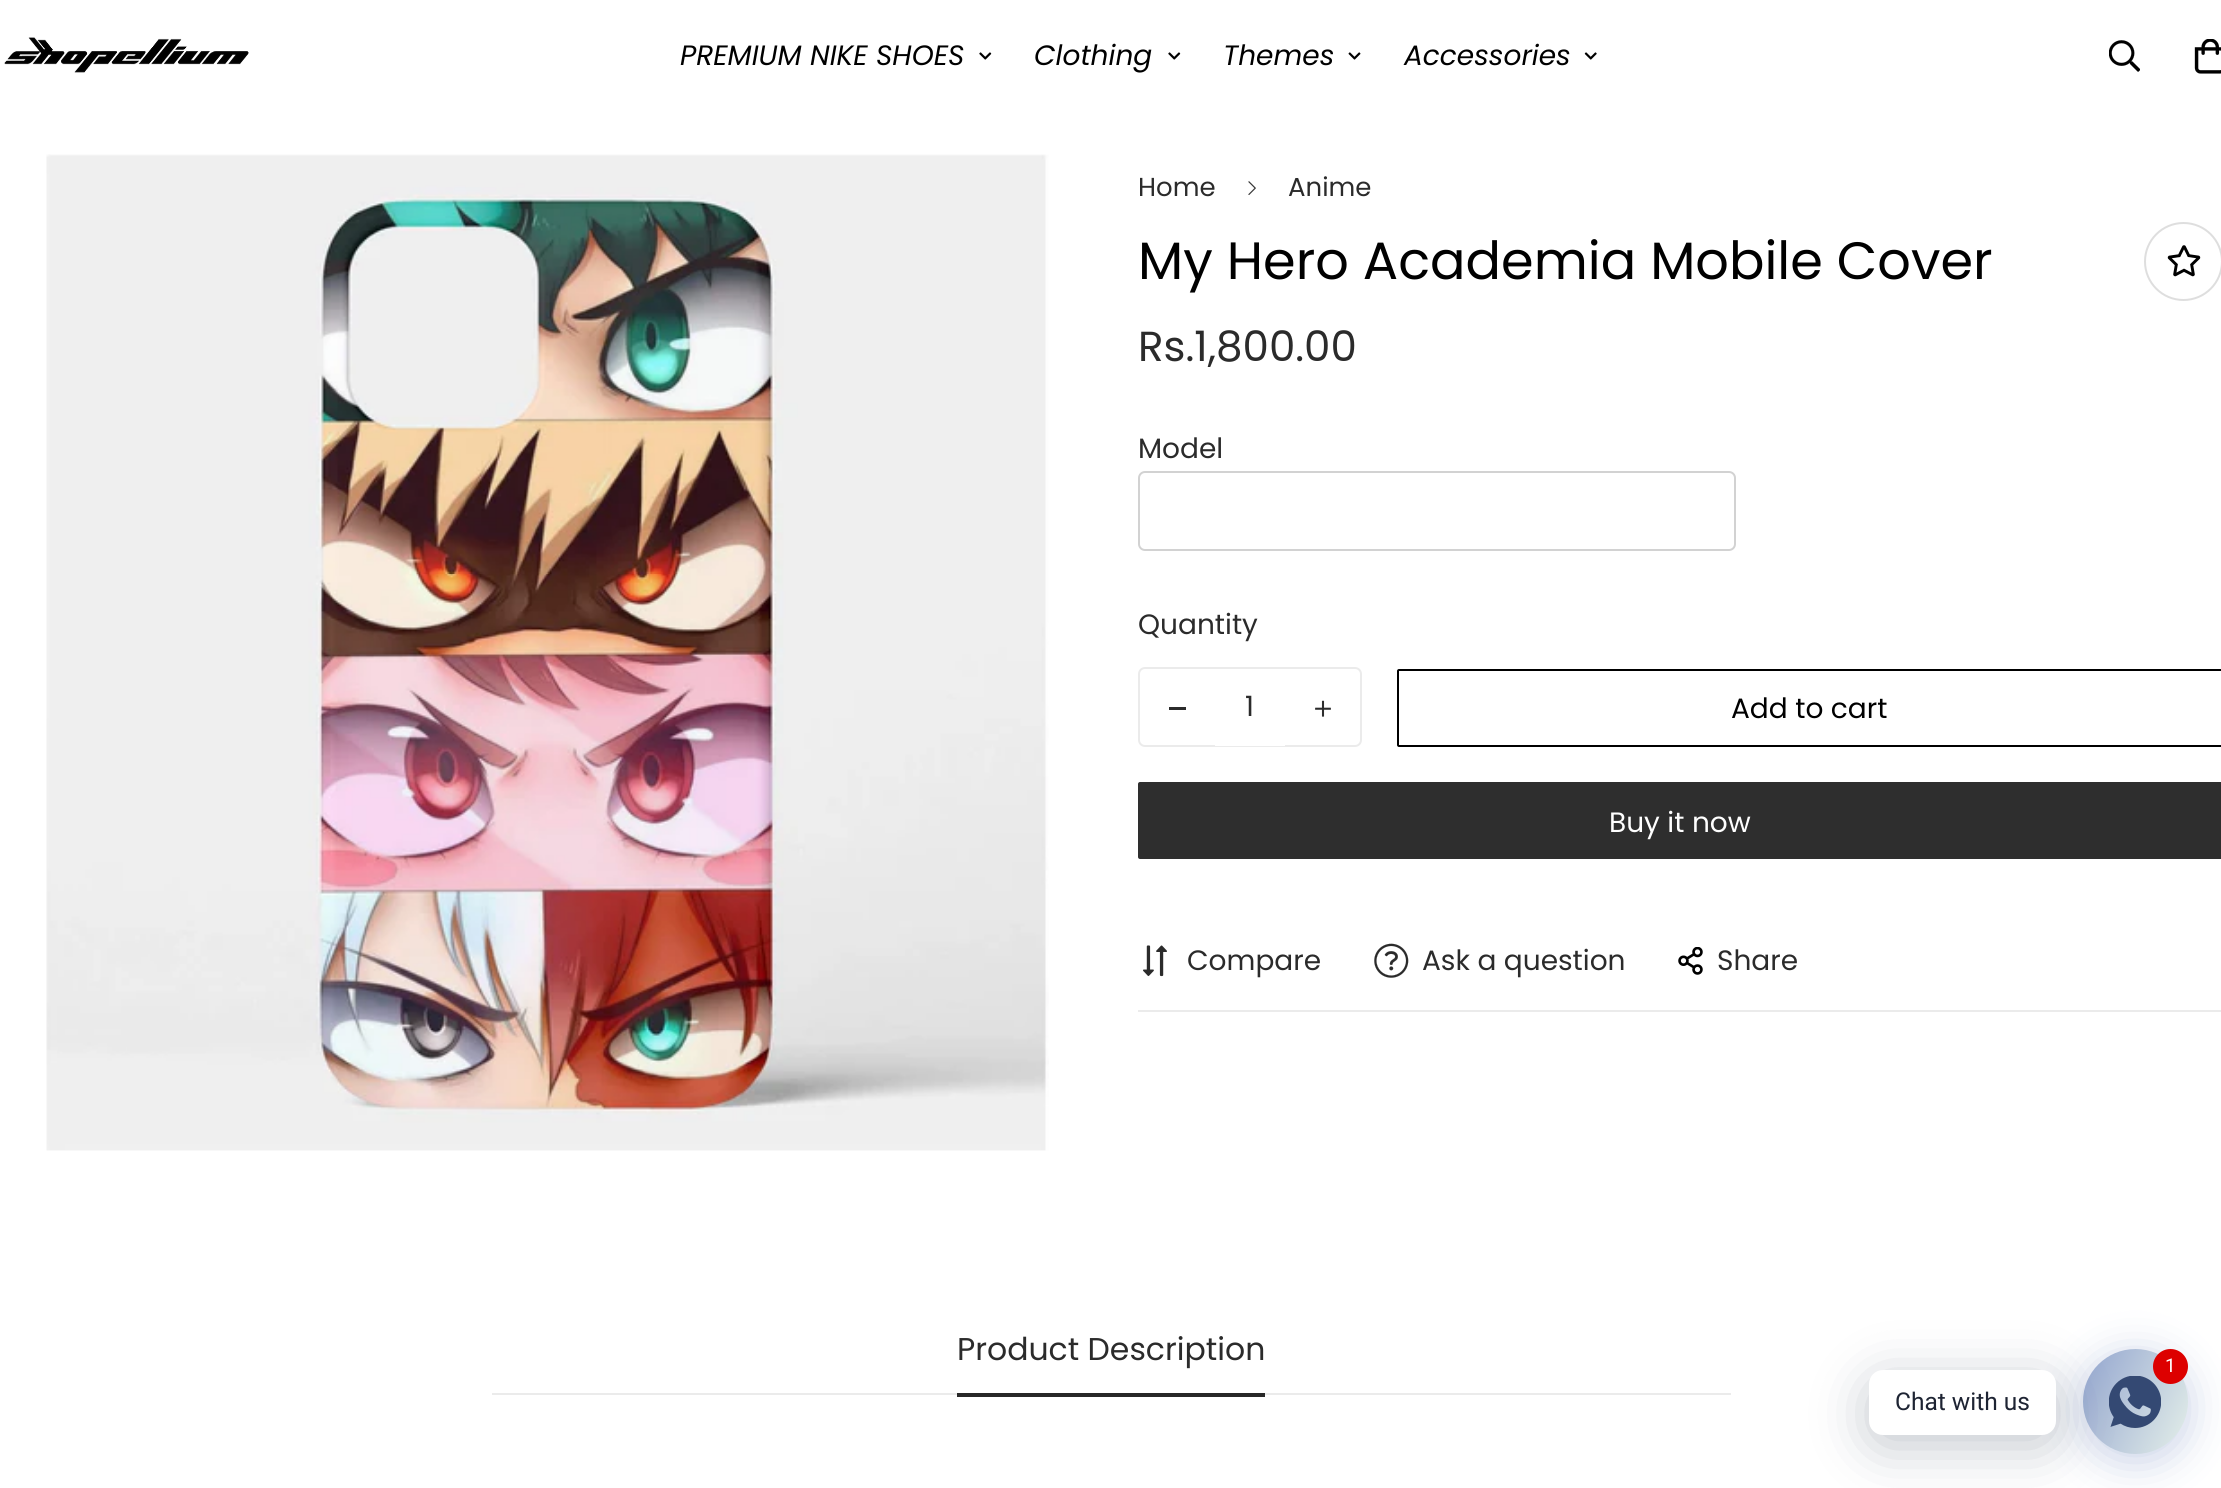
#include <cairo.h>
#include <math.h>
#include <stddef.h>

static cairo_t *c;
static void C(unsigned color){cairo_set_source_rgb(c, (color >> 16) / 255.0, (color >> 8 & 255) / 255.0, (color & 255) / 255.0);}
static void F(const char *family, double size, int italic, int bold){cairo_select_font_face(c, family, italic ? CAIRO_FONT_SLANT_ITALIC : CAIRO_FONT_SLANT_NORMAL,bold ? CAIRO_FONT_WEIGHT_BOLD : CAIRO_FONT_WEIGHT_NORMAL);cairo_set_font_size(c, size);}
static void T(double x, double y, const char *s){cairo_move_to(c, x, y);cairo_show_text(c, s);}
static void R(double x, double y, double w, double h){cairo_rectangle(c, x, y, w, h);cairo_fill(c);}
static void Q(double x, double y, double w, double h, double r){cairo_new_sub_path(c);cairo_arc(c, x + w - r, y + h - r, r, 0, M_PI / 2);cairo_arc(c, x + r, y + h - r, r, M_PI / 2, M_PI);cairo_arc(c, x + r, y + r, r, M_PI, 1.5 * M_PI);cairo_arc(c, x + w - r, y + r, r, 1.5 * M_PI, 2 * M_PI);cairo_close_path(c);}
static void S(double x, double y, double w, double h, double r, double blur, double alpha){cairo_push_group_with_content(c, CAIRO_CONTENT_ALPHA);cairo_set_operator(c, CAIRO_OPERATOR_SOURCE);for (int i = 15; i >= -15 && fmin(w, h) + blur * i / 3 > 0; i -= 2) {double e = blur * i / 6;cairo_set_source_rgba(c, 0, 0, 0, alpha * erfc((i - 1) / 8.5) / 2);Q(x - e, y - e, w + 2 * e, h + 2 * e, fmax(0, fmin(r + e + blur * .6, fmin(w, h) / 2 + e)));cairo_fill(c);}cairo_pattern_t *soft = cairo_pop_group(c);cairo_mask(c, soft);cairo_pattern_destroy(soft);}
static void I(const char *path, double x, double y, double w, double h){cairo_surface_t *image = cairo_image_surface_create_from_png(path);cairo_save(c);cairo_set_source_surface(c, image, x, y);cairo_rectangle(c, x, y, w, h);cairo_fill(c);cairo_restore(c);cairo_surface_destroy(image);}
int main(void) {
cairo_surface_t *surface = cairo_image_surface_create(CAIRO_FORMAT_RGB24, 2221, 1488);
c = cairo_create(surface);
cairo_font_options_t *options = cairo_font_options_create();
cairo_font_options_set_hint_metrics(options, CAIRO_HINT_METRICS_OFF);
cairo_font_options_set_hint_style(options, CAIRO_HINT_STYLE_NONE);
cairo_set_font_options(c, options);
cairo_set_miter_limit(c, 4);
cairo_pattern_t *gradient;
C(0xffffff);
cairo_paint(c);
I("1.png",4,37,245,36);
F("Poppins",28,1,0);
C(0x000000);
T(680,65,"PREMIUM NIKE SHOES");
I("2.png",979,52,13,8);
T(1034,65,"Clothing");
I("2.png",1168,52,13,8);
T(1223,65,"Themes");
I("3.png",1348,52,13,8);
T(1404,65,"Accessories");
I("4.png",1584,52,13,8);
I("5.png",2109,40,31,32);
I("6.png",2194,39,27,35);
I("7.png",46,154,1003,997);
F("Poppins",26,0,0);
C(0x2b2b2b);
T(1138,196,"Home");
I("8.png",1248,181,8,14);
T(1288,196,"Anime");
F("Poppins",52.5,0,0);
C(0x000000);
T(1138,279,"My Hero Academia Mobile Cover");
cairo_new_path(c);
cairo_arc(c,2183.5,261.5,38.5,0,2 * M_PI);
C(0xdedede);
cairo_stroke(c);
I("9.png",2167,245,34,32);
F("Poppins",42,0,0);
C(0x2b2b2b);
T(1138,361,"Rs.1,800.00");
F("Poppins",28,0,0);
T(1138,458,"Model");
Q(1139,472,596,78,6);
C(0xd2d2d2);
cairo_stroke(c);
C(0x2b2b2b);
T(1138,634,"Quantity");
Q(1139,668,222,78,6);
C(0xebebeb);
cairo_stroke(c);
C(0x2b2b2b);
R(1169,707,17,3);
C(0xffffff);
R(1215,745,70,1);
C(0x2b2b2b);
T(1245,716,"1");
I("10.png",1315,700,16,17);
Q(1398,670,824,76,1);
C(0x000000);
cairo_stroke(c);
T(1731,718,"Add to cart");
C(0x2e2e2e);
Q(1139,783,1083,75,1);
cairo_fill_preserve(c);
cairo_stroke(c);
C(0xffffff);
T(1609,832,"Buy it now");
C(0xebebeb);
R(1138,1010,1083,2);
I("11.png",1143,945,24,32);
C(0x2b2b2b);
T(1187,970,"Compare");
I("12.png",1374,943,35,35);
T(1422,970,"Ask a question");
I("13.png",1678,947,25,28);
T(1717,970,"Share");
C(0xebebeb);
R(492,1393,1239,2);
F("Poppins",31.5,0,0);
C(0x2b2b2b);
T(957,1360,"Product Description");
C(0x282828);
R(957,1393,308,4);
C(0x93a5cf);
S(2083,1356,105,105,52.5,21,.5);
gradient = cairo_pattern_create_linear(2072,1372,2198,1431);
cairo_pattern_add_color_stop_rgba(gradient,0,0.576,0.647,0.812,1);
cairo_pattern_add_color_stop_rgba(gradient,1,0.894,0.937,0.914,1);
cairo_set_source(c,gradient);
cairo_pattern_destroy(gradient);
cairo_arc(c,2135.5,1401.5,52.5,0,2 * M_PI);
cairo_fill(c);
C(0x00122e);
S(1869,1381,187,65,14,28,.24);
I("14.png",2109,1376,52,52);
C(0xdd0000);
cairo_arc(c,2170.5,1366.5,17.5,0,2 * M_PI);
cairo_fill(c);
F("Roboto",19,0,0);
C(0xffffff);
T(2165,1372,"1");
Q(1869,1370,187,65,14);
cairo_fill(c);
F("Roboto",24.5,0,0);
C(0x1e2433);
T(1895,1410,"Chat with us");
cairo_surface_write_to_png(surface, "o.png");
cairo_font_options_destroy(options);
cairo_destroy(c);
cairo_surface_destroy(surface);
return 0;
}
